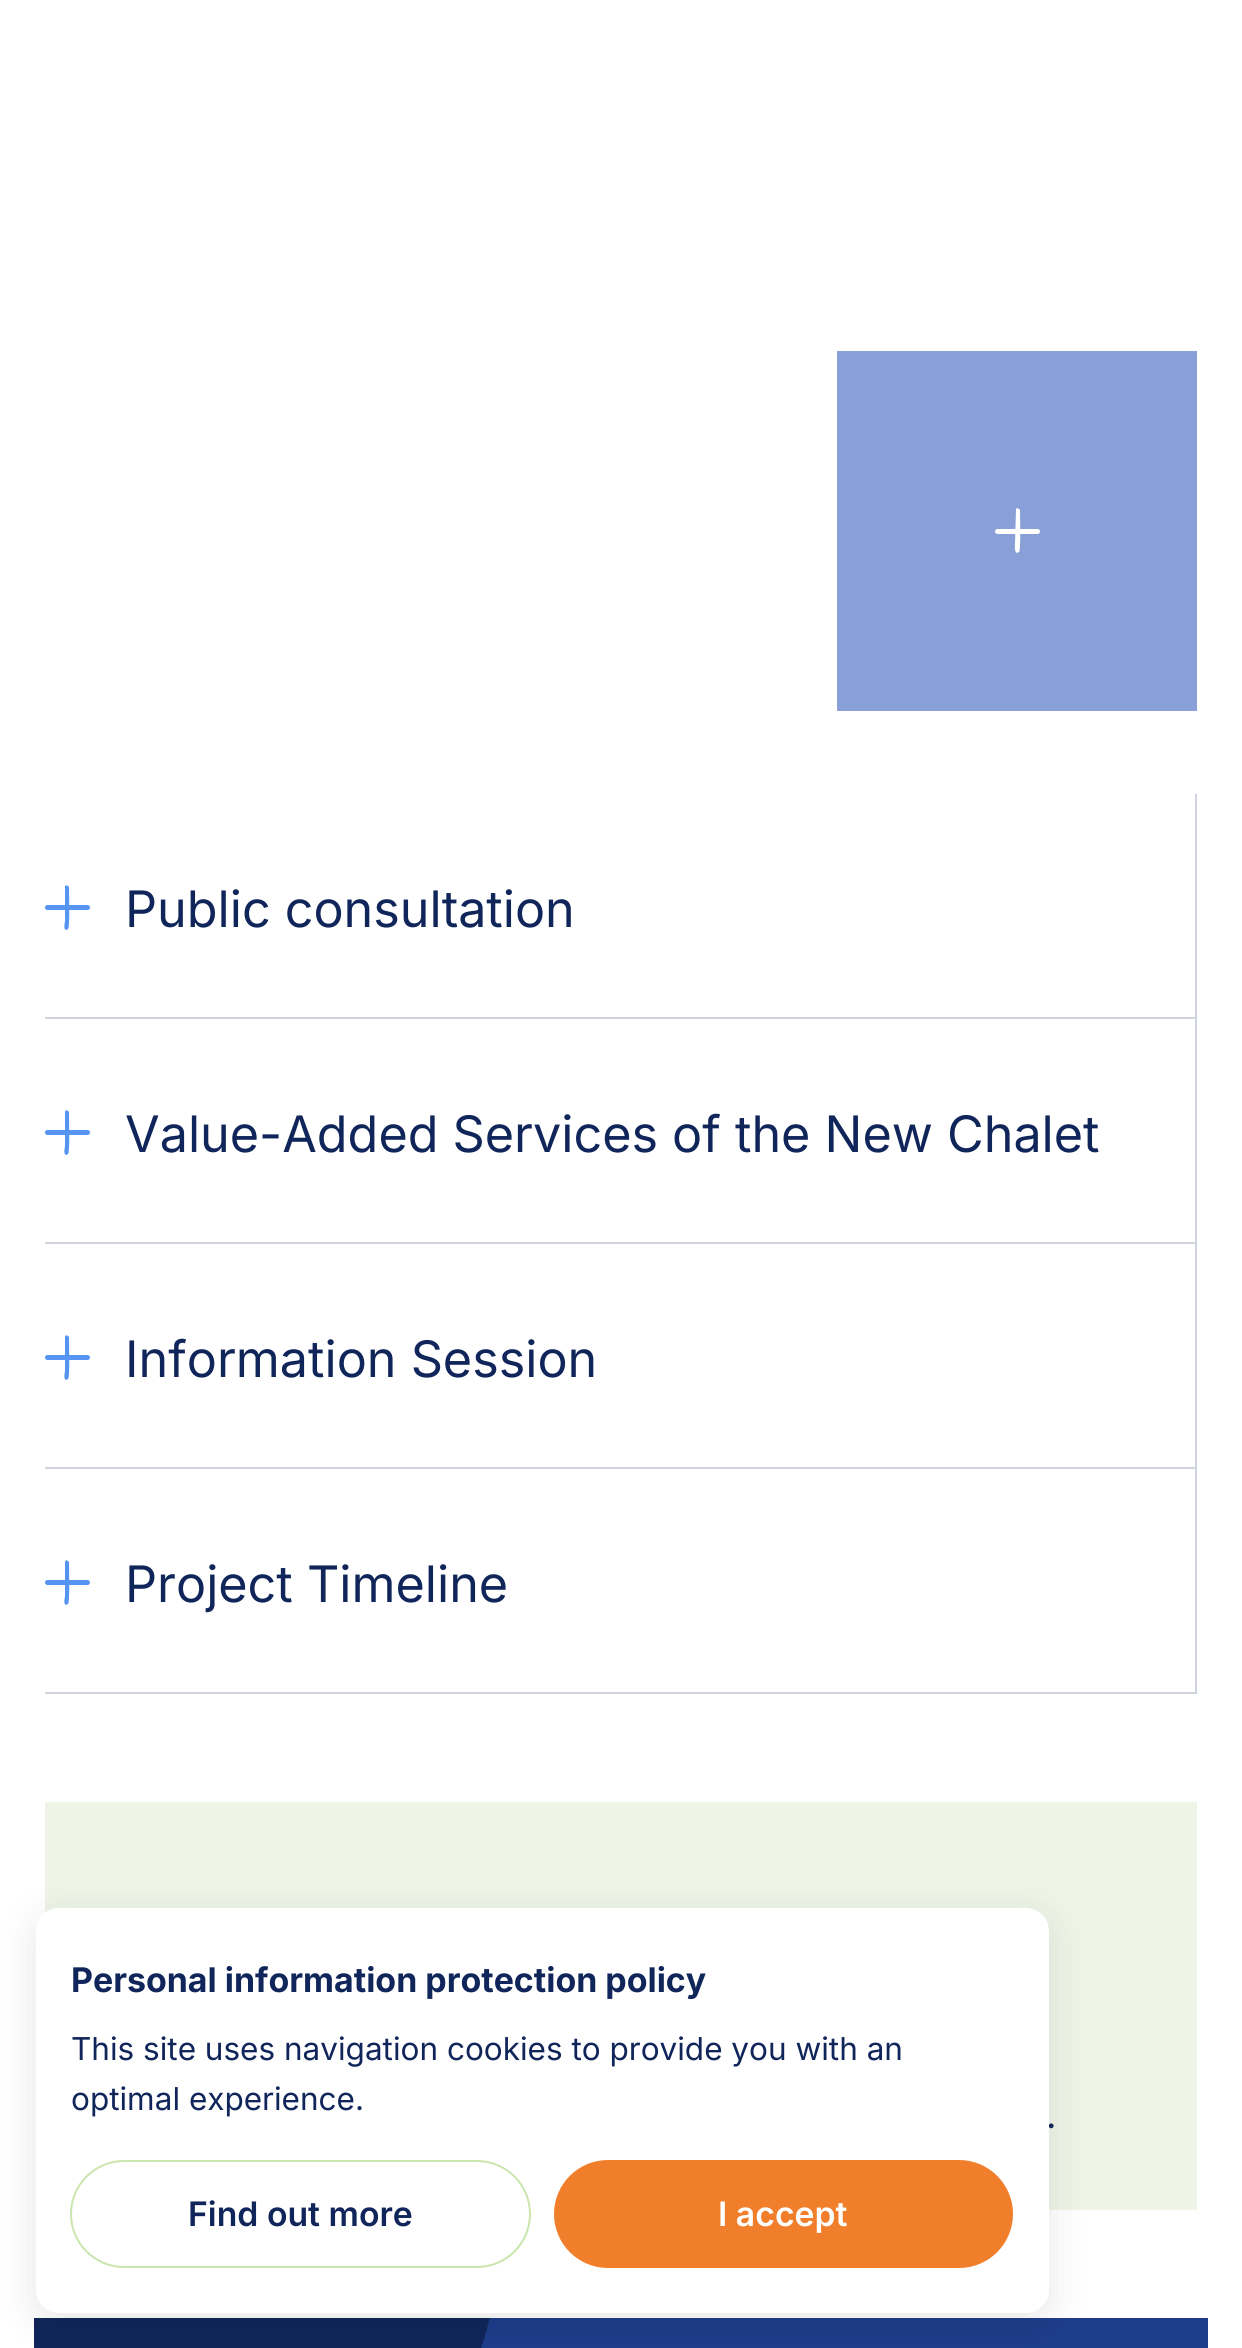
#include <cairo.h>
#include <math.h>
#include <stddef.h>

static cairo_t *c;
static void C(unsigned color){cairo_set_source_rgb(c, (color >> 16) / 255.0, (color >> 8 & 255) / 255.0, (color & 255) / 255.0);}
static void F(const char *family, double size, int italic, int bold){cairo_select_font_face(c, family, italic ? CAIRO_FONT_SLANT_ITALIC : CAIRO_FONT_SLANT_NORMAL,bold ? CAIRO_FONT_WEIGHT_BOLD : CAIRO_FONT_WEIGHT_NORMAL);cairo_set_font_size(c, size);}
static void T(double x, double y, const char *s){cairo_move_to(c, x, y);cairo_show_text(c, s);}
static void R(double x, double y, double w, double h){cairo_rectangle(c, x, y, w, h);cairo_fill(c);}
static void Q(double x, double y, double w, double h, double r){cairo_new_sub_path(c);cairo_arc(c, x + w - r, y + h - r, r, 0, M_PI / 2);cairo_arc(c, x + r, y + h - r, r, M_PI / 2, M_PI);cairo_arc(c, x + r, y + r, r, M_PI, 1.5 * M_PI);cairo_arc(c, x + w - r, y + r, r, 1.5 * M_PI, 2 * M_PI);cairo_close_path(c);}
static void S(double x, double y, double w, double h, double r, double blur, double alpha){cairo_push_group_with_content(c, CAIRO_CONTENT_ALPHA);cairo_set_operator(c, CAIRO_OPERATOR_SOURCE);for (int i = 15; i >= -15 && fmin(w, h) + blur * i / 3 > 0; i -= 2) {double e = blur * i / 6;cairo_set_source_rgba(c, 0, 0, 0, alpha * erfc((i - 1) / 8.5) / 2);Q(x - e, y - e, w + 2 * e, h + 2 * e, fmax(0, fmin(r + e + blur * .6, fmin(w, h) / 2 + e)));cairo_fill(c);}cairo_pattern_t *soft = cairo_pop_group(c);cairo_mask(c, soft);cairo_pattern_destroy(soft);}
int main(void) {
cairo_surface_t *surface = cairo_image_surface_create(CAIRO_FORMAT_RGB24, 1242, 2348);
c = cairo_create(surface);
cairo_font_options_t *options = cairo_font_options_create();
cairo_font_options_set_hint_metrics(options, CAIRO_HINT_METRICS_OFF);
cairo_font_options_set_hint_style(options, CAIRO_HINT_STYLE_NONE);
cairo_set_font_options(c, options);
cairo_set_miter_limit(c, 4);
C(0xffffff);
cairo_paint(c);
C(0x889fd8);
R(837,351,360,360);
C(0xffffff);
Q(995,529,45,5,2.5);
cairo_fill(c);
cairo_new_path(c);
cairo_move_to(c,1020,510);
cairo_curve_to(c,1020,515,1021,551,1019,552);
cairo_line_to(c,1017,553);
cairo_curve_to(c,1014,552,1015,545,1015,544);
cairo_line_to(c,1016,509);
cairo_curve_to(c,1016,508,1018,508,1019,509);
cairo_close_path(c);
cairo_fill(c);
C(0x5594f1);
Q(45,905,45,5,2.5);
cairo_fill(c);
cairo_new_path(c);
cairo_move_to(c,69,887);
cairo_curve_to(c,69,892,70,928,68,929);
cairo_line_to(c,66,930);
cairo_curve_to(c,63,929,65,922,65,921);
cairo_line_to(c,65,887);
cairo_curve_to(c,65,885,67,885,68,886);
cairo_close_path(c);
cairo_fill(c);
F("Inter",50.25,0,0);
C(0x10255a);
T(125,927,"Public consultation");
C(0xcfd3de);
R(1195,794,2,223);
R(45,1017,1152,2);
C(0x5594f1);
Q(45,1130,45,5,2.5);
cairo_fill(c);
cairo_new_path(c);
cairo_move_to(c,69,1112);
cairo_curve_to(c,69,1117,70,1153,68,1154);
cairo_line_to(c,66,1155);
cairo_curve_to(c,63,1154,65,1147,65,1146);
cairo_line_to(c,65,1112);
cairo_curve_to(c,65,1110,67,1110,68,1111);
cairo_close_path(c);
cairo_fill(c);
C(0x10255a);
T(125,1152,"Value-Added Services of the New Chalet");
C(0xcfd3de);
R(1195,1019,2,223);
R(45,1242,1152,2);
C(0x5594f1);
Q(45,1355,45,5,2.5);
cairo_fill(c);
cairo_new_path(c);
cairo_move_to(c,69,1337);
cairo_curve_to(c,69,1342,70,1378,68,1379);
cairo_line_to(c,66,1380);
cairo_curve_to(c,63,1379,65,1372,65,1371);
cairo_line_to(c,65,1337);
cairo_curve_to(c,65,1335,67,1335,68,1336);
cairo_close_path(c);
cairo_fill(c);
C(0x10255a);
T(125,1377,"Information Session");
C(0xcfd3de);
R(1195,1244,2,223);
R(45,1467,1152,2);
C(0x5594f1);
Q(45,1580,45,5,2.5);
cairo_fill(c);
cairo_new_path(c);
cairo_move_to(c,69,1562);
cairo_curve_to(c,69,1567,70,1603,68,1604);
cairo_line_to(c,66,1605);
cairo_curve_to(c,63,1604,65,1597,65,1596);
cairo_line_to(c,65,1562);
cairo_curve_to(c,65,1560,67,1560,68,1561);
cairo_close_path(c);
cairo_fill(c);
C(0x10255a);
T(125,1602,"Project Timeline");
C(0xcfd3de);
R(1195,1469,2,223);
R(45,1692,1152,2);
C(0xeef4e6);
R(45,1802,1152,408);
F("Inter",36,0,0);
C(0x10255a);
T(1046,2128,".");
C(0x1d3c8a);
R(481,2318,727,30);
cairo_save(c);
cairo_rectangle(c,34,2318,1174,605);
cairo_clip(c);
C(0x10255a);
cairo_new_path(c);
cairo_move_to(c,1140,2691);
cairo_line_to(c,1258,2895);
cairo_curve_to(c,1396,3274,1145,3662,783,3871);
cairo_line_to(c,154,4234);
cairo_line_to(c,-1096,2069);
cairo_line_to(c,-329,1626);
cairo_curve_to(c,20,1512,290,1624,420,1847);
cairo_curve_to(c,577,2120,509,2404,351,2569);
cairo_curve_to(c,719,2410,987,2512,1140,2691);
cairo_close_path(c);
cairo_fill(c);
cairo_restore(c);
C(0x000000);
S(36,1917,1013,405,23,20,.1);
C(0xffffff);
Q(36,1908,1013,405,23);
cairo_fill(c);
F("Inter",33.9,0,1);
C(0x10255a);
T(71,1992,"Personal information protection policy");
F("Inter",31.5,0,0);
T(71,2060,"This site uses navigation cookies to provide you with an");
T(71,2110,"optimal experience.");
Q(71,2161,459,106,53);
C(0xcbe5ae);
cairo_stroke(c);
F("Inter SemiBold",33.75,0,0);
C(0x10255a);
T(188,2226,"Find out more");
C(0xf17e2a);
Q(555,2161,457,106,53);
cairo_fill_preserve(c);
cairo_stroke(c);
C(0xffffff);
T(718,2226,"I accept");
cairo_surface_write_to_png(surface, "o.png");
cairo_font_options_destroy(options);
cairo_destroy(c);
cairo_surface_destroy(surface);
return 0;
}
